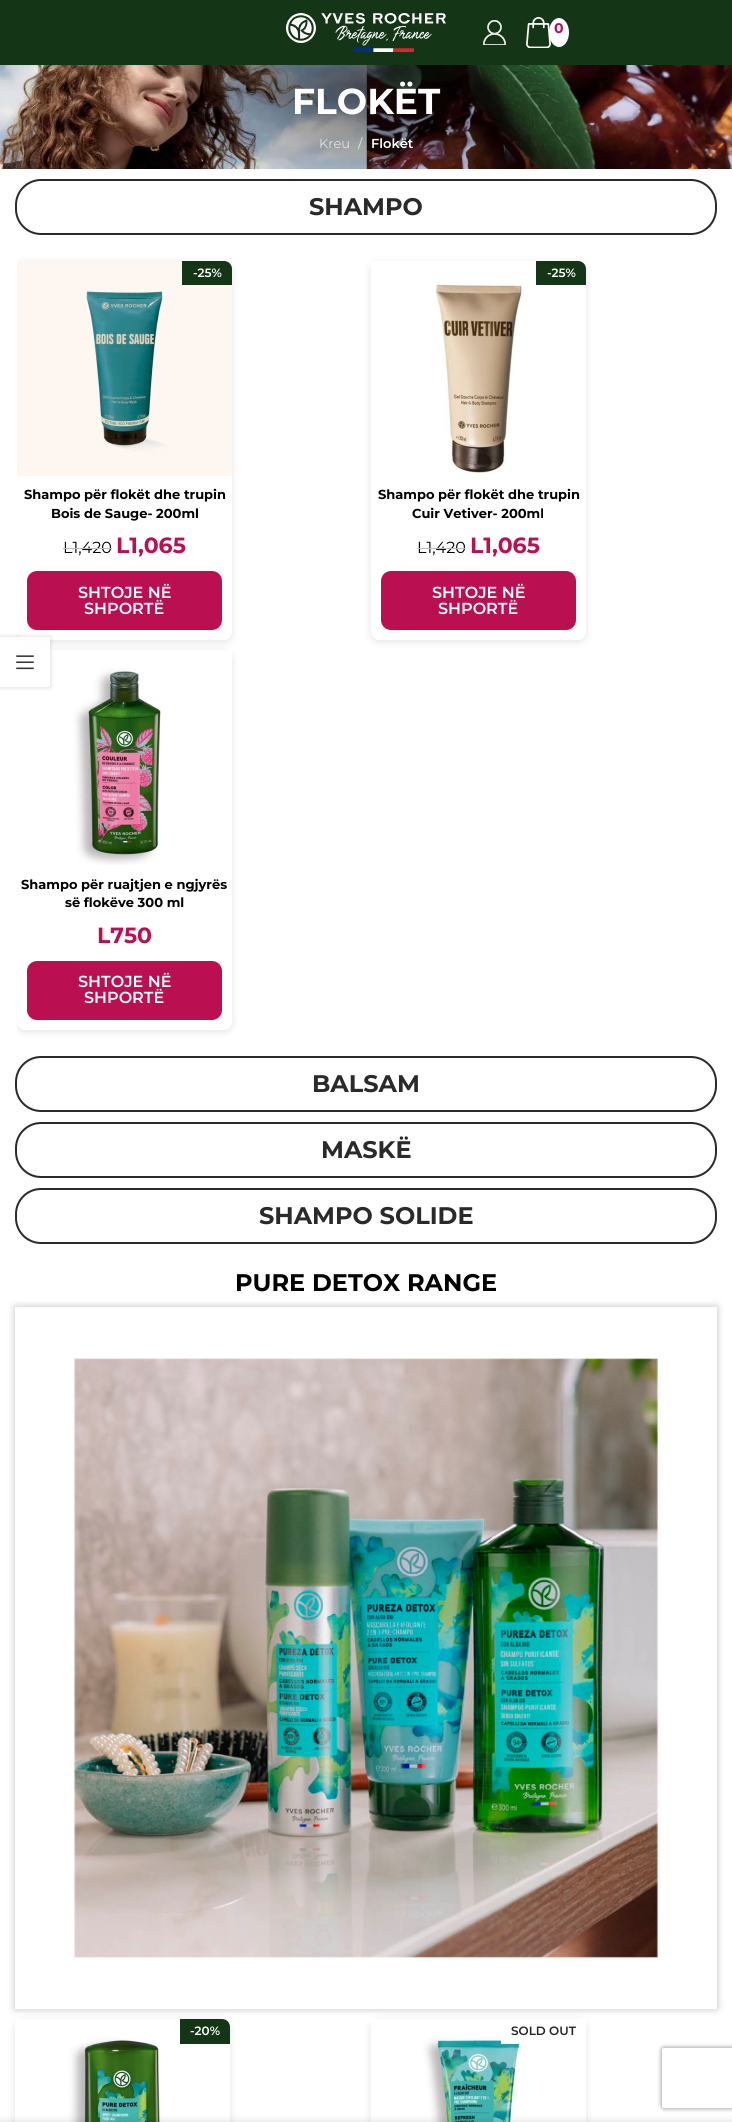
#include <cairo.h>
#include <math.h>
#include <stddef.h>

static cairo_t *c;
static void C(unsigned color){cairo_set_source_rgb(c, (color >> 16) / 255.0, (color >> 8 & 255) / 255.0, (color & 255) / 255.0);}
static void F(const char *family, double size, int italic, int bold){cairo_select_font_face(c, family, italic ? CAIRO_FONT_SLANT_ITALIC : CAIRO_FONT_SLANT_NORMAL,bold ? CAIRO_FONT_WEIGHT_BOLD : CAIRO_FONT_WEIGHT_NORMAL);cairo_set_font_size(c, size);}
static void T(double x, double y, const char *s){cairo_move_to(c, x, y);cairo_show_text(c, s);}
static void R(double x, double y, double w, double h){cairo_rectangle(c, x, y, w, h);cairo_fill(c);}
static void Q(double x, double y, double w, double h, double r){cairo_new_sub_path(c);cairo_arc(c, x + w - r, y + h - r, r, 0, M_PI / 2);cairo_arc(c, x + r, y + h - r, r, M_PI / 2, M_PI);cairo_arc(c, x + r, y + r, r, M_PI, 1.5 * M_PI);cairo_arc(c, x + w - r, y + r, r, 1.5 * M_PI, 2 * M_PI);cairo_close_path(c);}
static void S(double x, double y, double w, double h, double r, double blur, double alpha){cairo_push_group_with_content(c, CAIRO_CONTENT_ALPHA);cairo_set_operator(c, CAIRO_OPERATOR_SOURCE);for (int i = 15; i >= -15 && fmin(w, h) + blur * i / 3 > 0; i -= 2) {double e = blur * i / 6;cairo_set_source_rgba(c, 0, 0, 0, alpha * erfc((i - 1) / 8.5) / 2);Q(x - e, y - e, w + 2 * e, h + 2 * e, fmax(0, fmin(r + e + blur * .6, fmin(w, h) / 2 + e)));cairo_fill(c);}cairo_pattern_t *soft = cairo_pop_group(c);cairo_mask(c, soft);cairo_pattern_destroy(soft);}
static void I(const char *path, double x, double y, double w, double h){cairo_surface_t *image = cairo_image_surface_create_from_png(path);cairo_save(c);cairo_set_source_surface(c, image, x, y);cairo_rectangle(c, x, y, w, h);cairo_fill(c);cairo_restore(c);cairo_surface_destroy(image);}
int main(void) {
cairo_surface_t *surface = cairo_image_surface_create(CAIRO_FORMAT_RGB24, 732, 2122);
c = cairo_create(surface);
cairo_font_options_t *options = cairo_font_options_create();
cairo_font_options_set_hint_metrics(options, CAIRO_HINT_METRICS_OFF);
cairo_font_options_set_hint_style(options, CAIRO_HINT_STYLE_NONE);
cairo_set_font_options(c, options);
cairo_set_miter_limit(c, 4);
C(0xffffff);
cairo_paint(c);
C(0x143616);
R(0,0,732,65);
I("1.png",286,13,160,39);
I("2.png",483,20,23,25);
I("3.png",526,17,25,31);
C(0xffffff);
cairo_new_path(c);
cairo_move_to(c,559,18);
cairo_curve_to(c,564.5,18,569,24.5,569,32.5);
cairo_curve_to(c,569,40.5,564.5,47,559,47);
cairo_curve_to(c,553.5,47,549,40.5,549,32.5);
cairo_curve_to(c,549,24.5,553.5,18,559,18);
cairo_close_path(c);
cairo_fill(c);
F("Montserrat",14,0,1);
C(0xba1051);
T(554,33,"0");
I("4.png",0,65,732,104);
F("Montserrat",36,0,1);
C(0xffffff);
T(292,114,"FLOKËT");
F("Montserrat",13,0,0);
C(0xe1e2e3);
T(319,148,"Kreu");
C(0xebecec);
T(358,148,"/");
F("Montserrat SemiBold",13,0,0);
C(0xffffff);
T(371,148,"Flokët");
Q(16,180,700,54,25);
C(0x2a2a2a);
cairo_stroke(c);
F("Montserrat",24,0,1);
T(309,215,"SHAMPO");
cairo_save(c);
cairo_rectangle(c,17,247,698,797);
cairo_clip(c);
C(0x000000);
S(17,263,215,379,8,4,.11);
cairo_restore(c);
C(0xffffff);
Q(17,261,215,379,8);
cairo_fill(c);
I("5.png",17,261,215,215);
C(0x143616);
cairo_new_path(c);
cairo_move_to(c,182,261);
cairo_line_to(c,224,261);
cairo_curve_to(c,228.5,261,232,264.5,232,269);
cairo_line_to(c,232,285);
cairo_line_to(c,182,285);
cairo_close_path(c);
cairo_fill(c);
F("Montserrat SemiBold",12,0,0);
C(0xffffff);
T(193,277,"-25%");
F("Montserrat",13,0,1);
C(0x000000);
T(24,499,"Shampo për flokët dhe trupin");
T(51,518,"Bois de Sauge- 200ml");
F("Montserrat",16,0,0);
T(63,553,"L1,420");
C(0xbbbbbb);
R(63,548,49,1);
F("Montserrat",22,0,1);
C(0xba1051);
T(116,553,"L1,065");
Q(27,571,195,59,10);
cairo_fill(c);
F("Montserrat SemiBold",16,0,0);
C(0xffffff);
T(78,598,"SHTOJE NË");
T(84,614,"SHPORTË");
C(0x000000);
S(371,263,215,379,8,4,.11);
C(0xffffff);
Q(371,261,215,379,8);
cairo_fill(c);
I("6.png",371,261,215,212);
C(0x143616);
cairo_new_path(c);
cairo_move_to(c,536,261);
cairo_line_to(c,578,261);
cairo_curve_to(c,582.5,261,586,264.5,586,269);
cairo_line_to(c,586,285);
cairo_line_to(c,536,285);
cairo_close_path(c);
cairo_fill(c);
F("Montserrat SemiBold",12,0,0);
C(0xffffff);
T(547,277,"-25%");
F("Montserrat",13,0,1);
C(0x000000);
T(378,499,"Shampo për flokët dhe trupin");
T(412,518,"Cuir Vetiver- 200ml");
F("Montserrat",16,0,0);
T(417,553,"L1,420");
C(0xbbbbbb);
R(417,548,49,1);
F("Montserrat",22,0,1);
C(0xba1051);
T(470,553,"L1,065");
Q(381,571,195,59,10);
cairo_fill(c);
F("Montserrat SemiBold",16,0,0);
C(0xffffff);
T(432,598,"SHTOJE NË");
T(438,614,"SHPORTË");
cairo_save(c);
cairo_rectangle(c,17,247,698,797);
cairo_clip(c);
C(0x000000);
S(17,652,215,380,8,4,.11);
cairo_restore(c);
Q(17,650,215,380,8);
cairo_fill(c);
I("7.png",17,650,215,215);
F("Montserrat",13,0,1);
C(0x000000);
T(21,889,"Shampo për ruajtjen e ngjyrës");
T(65,907,"së flokëve 300 ml");
F("Montserrat",22,0,1);
C(0xba1051);
T(97,943,"L750");
Q(27,961,195,59,10);
cairo_fill(c);
F("Montserrat SemiBold",16,0,0);
C(0xffffff);
T(78,987,"SHTOJE NË");
T(84,1003,"SHPORTË");
Q(16,1057,700,54,25);
C(0x2a2a2a);
cairo_stroke(c);
F("Montserrat",24,0,1);
T(312,1092,"BALSAM");
Q(16,1123,700,54,25);
cairo_stroke(c);
T(321,1158,"MASKË");
Q(16,1189,700,54,25);
cairo_stroke(c);
T(259,1224,"SHAMPO SOLIDE");
C(0x000000);
T(235,1291,"PURE DETOX RANGE");
cairo_save(c);
cairo_set_fill_rule(c,CAIRO_FILL_RULE_EVEN_ODD);
cairo_new_path(c);
cairo_move_to(c,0,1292);
cairo_line_to(c,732,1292);
cairo_line_to(c,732,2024);
cairo_line_to(c,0,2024);
cairo_close_path(c);
cairo_move_to(c,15,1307);
cairo_line_to(c,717,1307);
cairo_line_to(c,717,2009);
cairo_line_to(c,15,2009);
cairo_close_path(c);
cairo_clip(c);
C(0x000000);
S(15,1307,702,702,0,4.5,.12);
S(15,1307,702,702,0,4.5,.12);
cairo_restore(c);
I("8.png",73,1357,587,604);
C(0x000000);
S(15,2021,215,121,8,4,.11);
I("9.png",15,2019,215,103);
C(0x143616);
cairo_new_path(c);
cairo_move_to(c,180,2019);
cairo_line_to(c,222,2019);
cairo_curve_to(c,226.5,2019,230,2022.5,230,2027);
cairo_line_to(c,230,2044);
cairo_line_to(c,180,2044);
cairo_close_path(c);
cairo_fill(c);
F("Montserrat SemiBold",12,0,0);
C(0xffffff);
T(190,2035,"-20%");
C(0x000000);
S(371,2021,215,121,8,4,.11);
I("10.png",371,2019,215,103);
C(0xffffff);
R(501,2035,22,9);
C(0x242424);
T(511,2035,"SOLD OUT");
cairo_save(c);
cairo_set_fill_rule(c,CAIRO_FILL_RULE_EVEN_ODD);
cairo_new_path(c);
cairo_move_to(c,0,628);
cairo_line_to(c,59,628);
cairo_line_to(c,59,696);
cairo_line_to(c,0,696);
cairo_close_path(c);
cairo_move_to(c,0,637);
cairo_line_to(c,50,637);
cairo_line_to(c,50,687);
cairo_line_to(c,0,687);
cairo_close_path(c);
cairo_clip(c);
C(0x000000);
S(0,637,50,50,0,2.5,.17);
cairo_restore(c);
cairo_set_source_rgba(c,1,1,1,0.9);
R(17,637,33,13);
I("11.png",16,655,18,15);
C(0x000000);
S(0,2122,732,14,0,4.5,.14);
cairo_save(c);
cairo_set_fill_rule(c,CAIRO_FILL_RULE_EVEN_ODD);
cairo_new_path(c);
cairo_move_to(c,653,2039);
cairo_line_to(c,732,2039);
cairo_line_to(c,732,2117);
cairo_line_to(c,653,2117);
cairo_close_path(c);
cairo_move_to(c,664,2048);
cairo_line_to(c,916,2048);
cairo_curve_to(c,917,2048,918,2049,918,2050);
cairo_line_to(c,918,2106);
cairo_curve_to(c,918,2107,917,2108,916,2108);
cairo_line_to(c,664,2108);
cairo_curve_to(c,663,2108,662,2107,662,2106);
cairo_line_to(c,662,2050);
cairo_curve_to(c,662,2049,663,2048,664,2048);
cairo_close_path(c);
cairo_clip(c);
C(0x808080);
S(662,2048,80,60,2,2.5,1);
cairo_restore(c);
cairo_surface_write_to_png(surface, "o.png");
cairo_font_options_destroy(options);
cairo_destroy(c);
cairo_surface_destroy(surface);
return 0;
}
